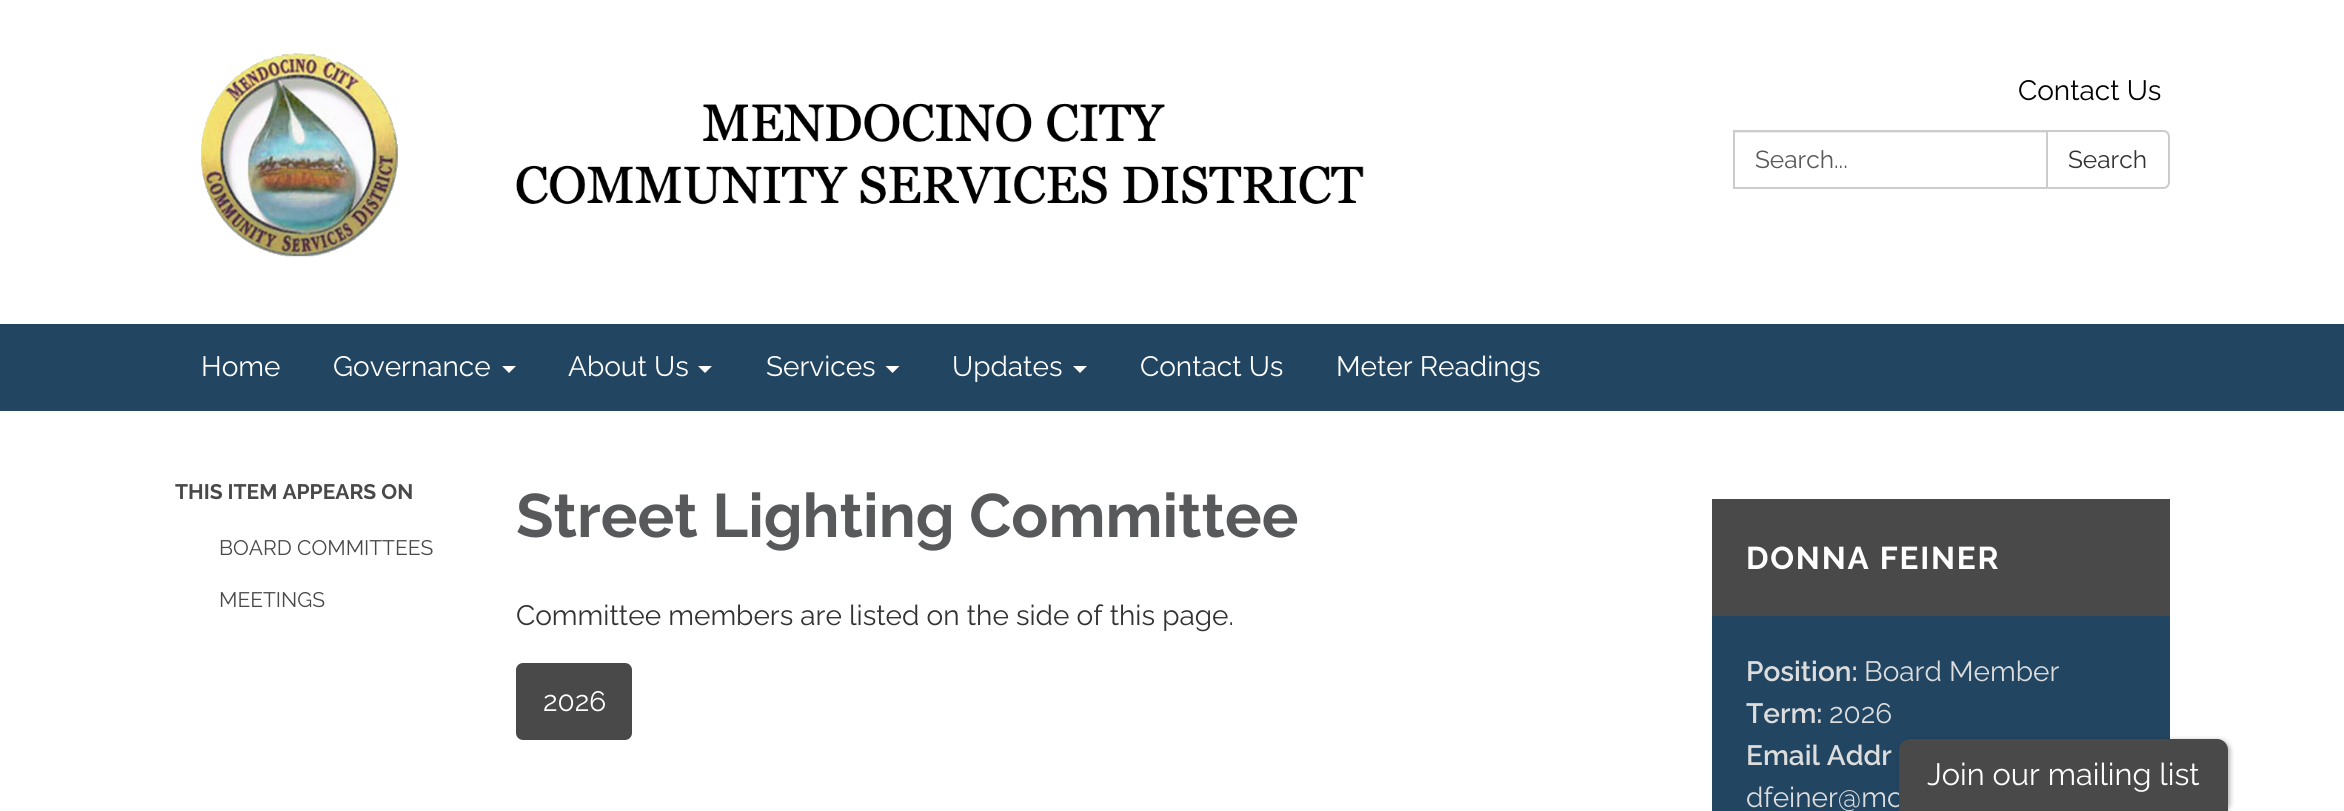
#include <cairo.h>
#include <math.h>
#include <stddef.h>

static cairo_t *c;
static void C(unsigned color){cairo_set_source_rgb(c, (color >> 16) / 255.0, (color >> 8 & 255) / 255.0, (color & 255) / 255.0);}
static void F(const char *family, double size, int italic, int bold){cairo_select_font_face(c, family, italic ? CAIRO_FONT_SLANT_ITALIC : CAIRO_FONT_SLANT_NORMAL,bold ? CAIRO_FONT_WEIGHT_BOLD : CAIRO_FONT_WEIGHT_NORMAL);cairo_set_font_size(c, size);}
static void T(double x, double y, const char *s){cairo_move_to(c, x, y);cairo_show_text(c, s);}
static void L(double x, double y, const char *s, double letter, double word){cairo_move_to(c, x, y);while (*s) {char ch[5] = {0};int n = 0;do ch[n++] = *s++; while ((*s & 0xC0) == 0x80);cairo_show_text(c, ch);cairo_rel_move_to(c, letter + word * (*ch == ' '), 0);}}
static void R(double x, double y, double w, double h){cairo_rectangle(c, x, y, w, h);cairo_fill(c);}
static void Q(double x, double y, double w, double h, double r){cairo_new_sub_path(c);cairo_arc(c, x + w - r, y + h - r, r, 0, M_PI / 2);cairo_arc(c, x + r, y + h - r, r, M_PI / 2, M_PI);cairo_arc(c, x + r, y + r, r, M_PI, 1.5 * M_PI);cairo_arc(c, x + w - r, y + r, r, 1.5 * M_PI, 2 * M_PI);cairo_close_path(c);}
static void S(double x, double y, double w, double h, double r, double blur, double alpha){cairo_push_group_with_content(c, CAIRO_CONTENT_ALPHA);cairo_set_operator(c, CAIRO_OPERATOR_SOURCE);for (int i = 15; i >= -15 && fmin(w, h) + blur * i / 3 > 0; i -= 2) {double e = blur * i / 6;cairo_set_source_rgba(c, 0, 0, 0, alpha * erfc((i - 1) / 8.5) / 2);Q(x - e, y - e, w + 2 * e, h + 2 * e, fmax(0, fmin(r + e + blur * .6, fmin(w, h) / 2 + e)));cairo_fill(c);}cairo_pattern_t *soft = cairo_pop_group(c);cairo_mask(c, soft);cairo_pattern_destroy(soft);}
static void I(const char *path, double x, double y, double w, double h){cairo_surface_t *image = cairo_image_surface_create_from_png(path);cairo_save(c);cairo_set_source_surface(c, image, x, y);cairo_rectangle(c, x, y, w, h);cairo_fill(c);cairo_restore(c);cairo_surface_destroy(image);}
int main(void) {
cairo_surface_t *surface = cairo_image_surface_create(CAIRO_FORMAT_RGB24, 2344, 811);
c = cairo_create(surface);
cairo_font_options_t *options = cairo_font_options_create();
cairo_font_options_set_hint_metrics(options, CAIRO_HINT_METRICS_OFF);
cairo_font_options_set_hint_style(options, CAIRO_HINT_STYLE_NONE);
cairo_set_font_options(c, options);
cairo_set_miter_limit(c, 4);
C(0x224562);
cairo_paint(c);
C(0xffffff);
R(0,0,2344,324);
I("1.png",201,53,1163,204);
F("Raleway",28,0,0);
C(0x000000);
T(2018,100,"Contact Us");
C(0xececec);
R(1734,132,312,1);
cairo_rectangle(c,1734,131,313,57);
C(0xcccccc);
cairo_stroke(c);
F("Raleway",24.5,0,0);
C(0x58595b);
T(1755,168,"Search...");
C(0xffffff);
cairo_new_path(c);
cairo_move_to(c,2047,131);
cairo_line_to(c,2163,131);
cairo_curve_to(c,2166.5,131,2169,133.5,2169,137);
cairo_line_to(c,2169,182);
cairo_curve_to(c,2169,185.5,2166.5,188,2163,188);
cairo_line_to(c,2047,188);
cairo_close_path(c);
cairo_fill_preserve(c);
C(0xcccccc);
cairo_stroke(c);
C(0x333333);
T(2068,168,"Search");
F("Raleway",28,0,0);
C(0xffffff);
T(201,376,"Home");
T(333,376,"Governance");
cairo_new_path(c);
cairo_move_to(c,502,366);
cairo_line_to(c,516,366);
cairo_line_to(c,509,373);
cairo_close_path(c);
cairo_fill(c);
T(568,376,"About Us");
cairo_new_path(c);
cairo_move_to(c,698,366);
cairo_line_to(c,712,366);
cairo_line_to(c,705,373);
cairo_close_path(c);
cairo_fill(c);
T(766,376,"Services");
cairo_new_path(c);
cairo_move_to(c,885.5,366);
cairo_line_to(c,899.5,366);
cairo_line_to(c,892.5,373);
cairo_close_path(c);
cairo_fill(c);
T(952,376,"Updates");
cairo_new_path(c);
cairo_move_to(c,1073,366);
cairo_line_to(c,1087,366);
cairo_line_to(c,1080,373);
cairo_close_path(c);
cairo_fill(c);
T(1140,376,"Contact Us");
T(1336,376,"Meter Readings");
R(0,411,2344,400);
F("Raleway",21,0,1);
C(0x494949);
T(175,499,"THIS ITEM APPEARS ON");
F("Raleway",21,0,0);
T(219,555,"BOARD COMMITTEES");
T(219,607,"MEETINGS");
F("Raleway",61.25,0,1);
C(0x58595b);
T(516,537,"Street Lighting Committee");
F("Raleway",28,0,0);
C(0x333333);
T(516,625,"Committee members are listed on the side of this page.");
C(0x494949);
Q(516,663,116,77,7);
cairo_fill(c);
C(0xffffff);
T(543,711,"2026");
C(0x224562);
R(1712,616,458,195);
C(0x494949);
R(1712,499,458,117);
F("Raleway",31.5,0,1);
C(0xffffff);
L(1746,569,"DONNA FEINER",1.75,0);
F("Raleway SemiBold",28,0,0);
C(0xdddddd);
T(1746,681,"Position:");
F("Raleway",28,0,0);
T(1864,681,"Board Member");
F("Raleway SemiBold",28,0,0);
T(1746,723,"Term:");
F("Raleway",28,0,0);
T(1829,723,"2026");
F("Raleway SemiBold",28,0,0);
T(1746,765,"Email Addr");
F("Raleway",28,0,0);
T(1746,807,"dfeiner@mc");
C(0x000000);
S(1901,740,329,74,11,2.5,.3);
C(0x494949);
cairo_new_path(c);
cairo_move_to(c,1910,739);
cairo_line_to(c,2217,739);
cairo_curve_to(c,2223,739,2228,744,2228,750);
cairo_line_to(c,2228,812);
cairo_line_to(c,1899,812);
cairo_line_to(c,1899,750);
cairo_curve_to(c,1899,744,1904,739,1910,739);
cairo_close_path(c);
cairo_fill(c);
F("Raleway",30.75,0,0);
C(0xffffff);
T(1927,785,"Join our mailing list");
cairo_surface_write_to_png(surface, "o.png");
cairo_font_options_destroy(options);
cairo_destroy(c);
cairo_surface_destroy(surface);
return 0;
}
